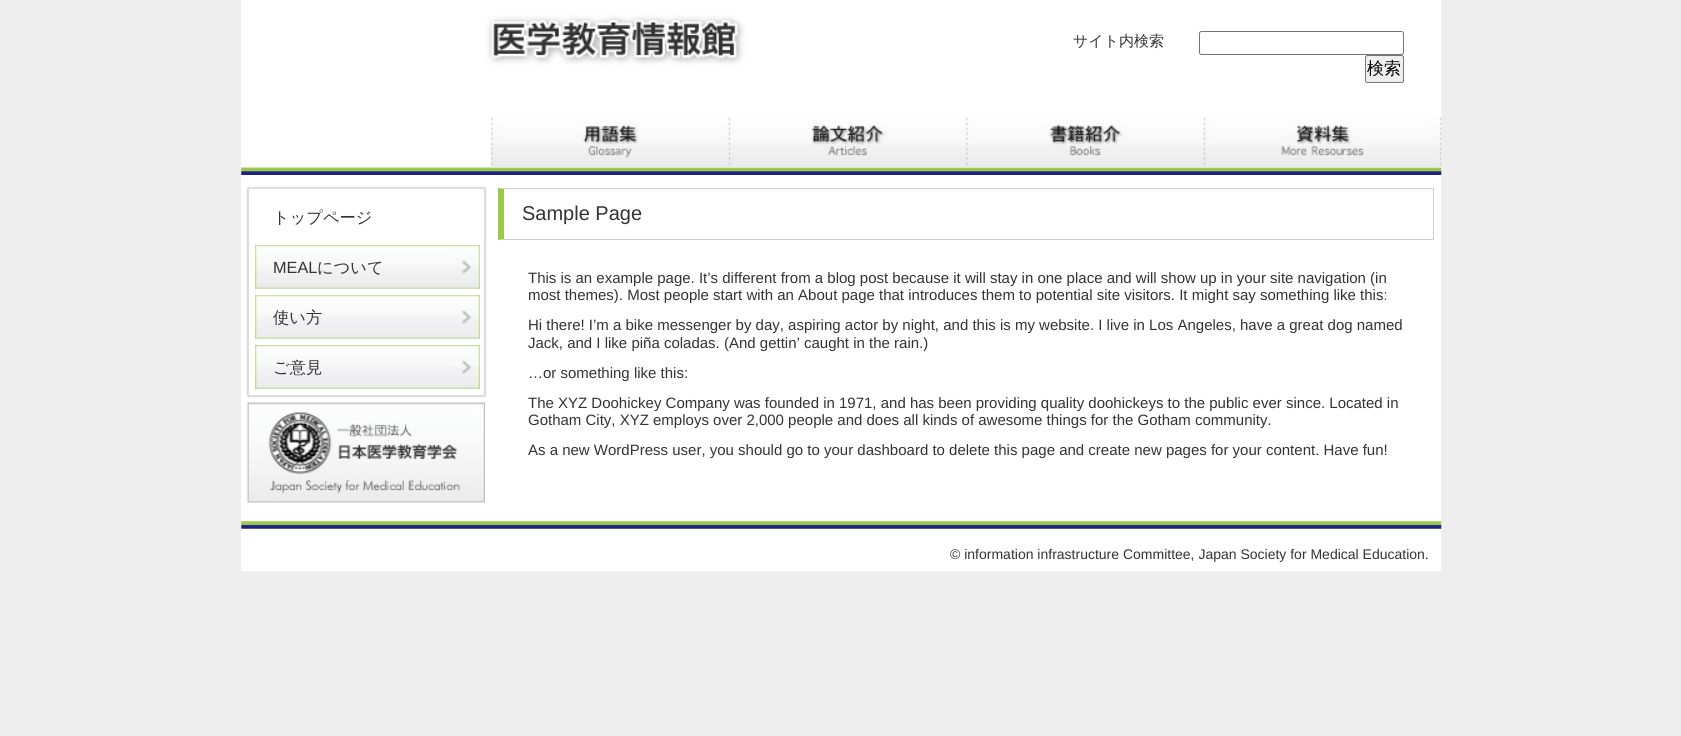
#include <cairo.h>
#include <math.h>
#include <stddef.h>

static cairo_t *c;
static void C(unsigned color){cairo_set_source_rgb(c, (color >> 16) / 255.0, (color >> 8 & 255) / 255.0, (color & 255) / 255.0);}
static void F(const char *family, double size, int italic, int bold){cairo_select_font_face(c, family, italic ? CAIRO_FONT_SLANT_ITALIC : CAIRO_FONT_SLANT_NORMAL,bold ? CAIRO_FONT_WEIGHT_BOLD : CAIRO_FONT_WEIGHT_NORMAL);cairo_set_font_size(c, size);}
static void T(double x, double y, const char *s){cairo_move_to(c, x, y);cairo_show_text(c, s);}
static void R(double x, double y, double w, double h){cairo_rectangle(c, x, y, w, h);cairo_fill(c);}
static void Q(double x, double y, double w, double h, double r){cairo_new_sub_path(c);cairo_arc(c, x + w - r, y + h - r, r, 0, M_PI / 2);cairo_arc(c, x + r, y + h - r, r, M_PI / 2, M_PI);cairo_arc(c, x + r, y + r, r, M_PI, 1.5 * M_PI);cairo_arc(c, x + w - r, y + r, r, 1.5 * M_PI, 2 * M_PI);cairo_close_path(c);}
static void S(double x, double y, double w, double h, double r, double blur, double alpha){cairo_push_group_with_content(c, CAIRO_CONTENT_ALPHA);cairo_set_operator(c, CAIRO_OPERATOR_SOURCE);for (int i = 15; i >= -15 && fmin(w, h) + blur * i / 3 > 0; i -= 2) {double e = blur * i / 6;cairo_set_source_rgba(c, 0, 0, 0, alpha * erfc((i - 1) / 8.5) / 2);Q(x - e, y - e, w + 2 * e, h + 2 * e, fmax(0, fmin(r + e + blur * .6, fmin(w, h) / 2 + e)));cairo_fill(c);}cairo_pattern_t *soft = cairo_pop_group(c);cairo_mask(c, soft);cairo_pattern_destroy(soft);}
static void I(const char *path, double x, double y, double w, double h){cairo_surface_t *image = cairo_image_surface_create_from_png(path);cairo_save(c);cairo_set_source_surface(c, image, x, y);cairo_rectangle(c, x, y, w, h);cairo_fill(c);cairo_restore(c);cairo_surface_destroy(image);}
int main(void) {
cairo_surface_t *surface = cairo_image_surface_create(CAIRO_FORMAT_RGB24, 1681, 736);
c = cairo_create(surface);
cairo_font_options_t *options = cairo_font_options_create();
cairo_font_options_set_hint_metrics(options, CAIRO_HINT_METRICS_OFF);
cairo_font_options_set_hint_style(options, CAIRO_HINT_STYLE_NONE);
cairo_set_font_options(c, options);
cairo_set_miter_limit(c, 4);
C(0xeeeeee);
cairo_paint(c);
C(0xffffff);
R(241,0,1200,571);
I("1.png",241,0,1201,175);
F("WenQuanYi Zen Hei Medium",15,0,0);
C(0x333333);
T(1073,46,"サイト内検索");
Q(1199.5,31.5,204,23,2);
C(0x767676);
cairo_set_line_width(c,1);
cairo_stroke(c);
C(0xefefef);
Q(1365.5,55.5,38,27,2);
cairo_fill_preserve(c);
C(0x767676);
cairo_stroke(c);
F("WenQuanYi Zen Hei Medium",17,0,0);
C(0x000000);
T(1367,74,"検索");
I("2.png",491,117,238,51);
I("3.png",728,117,239,51);
I("4.png",966,117,238,51);
I("5.png",1203,117,239,51);
cairo_save(c);
cairo_set_fill_rule(c,CAIRO_FILL_RULE_EVEN_ODD);
cairo_new_path(c);
cairo_move_to(c,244,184);
cairo_line_to(c,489,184);
cairo_line_to(c,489,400);
cairo_line_to(c,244,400);
cairo_close_path(c);
cairo_move_to(c,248,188);
cairo_line_to(c,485,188);
cairo_line_to(c,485,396);
cairo_line_to(c,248,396);
cairo_close_path(c);
cairo_clip(c);
C(0x000000);
S(248,188,237,208,0,1,.4);
cairo_restore(c);
cairo_rectangle(c,248.5,188.5,236,207);
C(0xdddddd);
cairo_stroke(c);
F("WenQuanYi Zen Hei Medium",16.25,0,0);
C(0x333333);
T(273,223,"トップページ");
I("6.png",255,245,225,44);
F("Liberation Sans",16.25,0,0);
T(273,273,"MEAL");
F("WenQuanYi Zen Hei Medium",16.25,0,0);
T(317,273,"について");
I("6.png",255,295,225,44);
T(273,323,"使い方");
I("6.png",255,345,225,44);
T(273,373,"ご意見");
I("7.png",247,402,238,101);
C(0xcccccc);
cairo_new_path(c);
cairo_move_to(c,498,188);
cairo_line_to(c,1434,188);
cairo_line_to(c,1432,189);
cairo_line_to(c,504,189);
cairo_close_path(c);
cairo_fill(c);
R(1433,188,1,52);
cairo_new_path(c);
cairo_move_to(c,1434,240);
cairo_line_to(c,498,240);
cairo_line_to(c,504,239);
cairo_line_to(c,1432,239);
cairo_close_path(c);
cairo_fill(c);
C(0x9ac848);
cairo_new_path(c);
cairo_move_to(c,498,240);
cairo_line_to(c,498,188);
cairo_line_to(c,504,189);
cairo_line_to(c,504,239);
cairo_close_path(c);
cairo_fill(c);
F("Liberation Sans",20,0,0);
C(0x333333);
T(522,220,"Sample Page");
F("Liberation Sans",15,0,0);
T(528,283,"This is an example page. It’s different from a blog post because it will stay in one place and will show up in your site navigation (in");
T(528,300,"most themes). Most people start with an About page that introduces them to potential site visitors. It might say something like this:");
T(528,330,"Hi there! I’m a bike messenger by day, aspiring actor by night, and this is my website. I live in Los Angeles, have a great dog named");
T(528,348,"Jack, and I like piña coladas. (And gettin’ caught in the rain.)");
T(528,378,"…or something like this:");
T(528,408,"The XYZ Doohickey Company was founded in 1971, and has been providing quality doohickeys to the public ever since. Located in");
T(528,425,"Gotham City, XYZ employs over 2,000 people and does all kinds of awesome things for the Gotham community.");
T(528,455,"As a new WordPress user, you should go to your dashboard to delete this page and create new pages for your content. Have fun!");
I("8.png",241,521,1201,51);
F("Liberation Sans",14,0,0);
T(950,559,"© information infrastructure Committee, Japan Society for Medical Education.");
cairo_surface_write_to_png(surface, "o.png");
cairo_font_options_destroy(options);
cairo_destroy(c);
cairo_surface_destroy(surface);
return 0;
}
